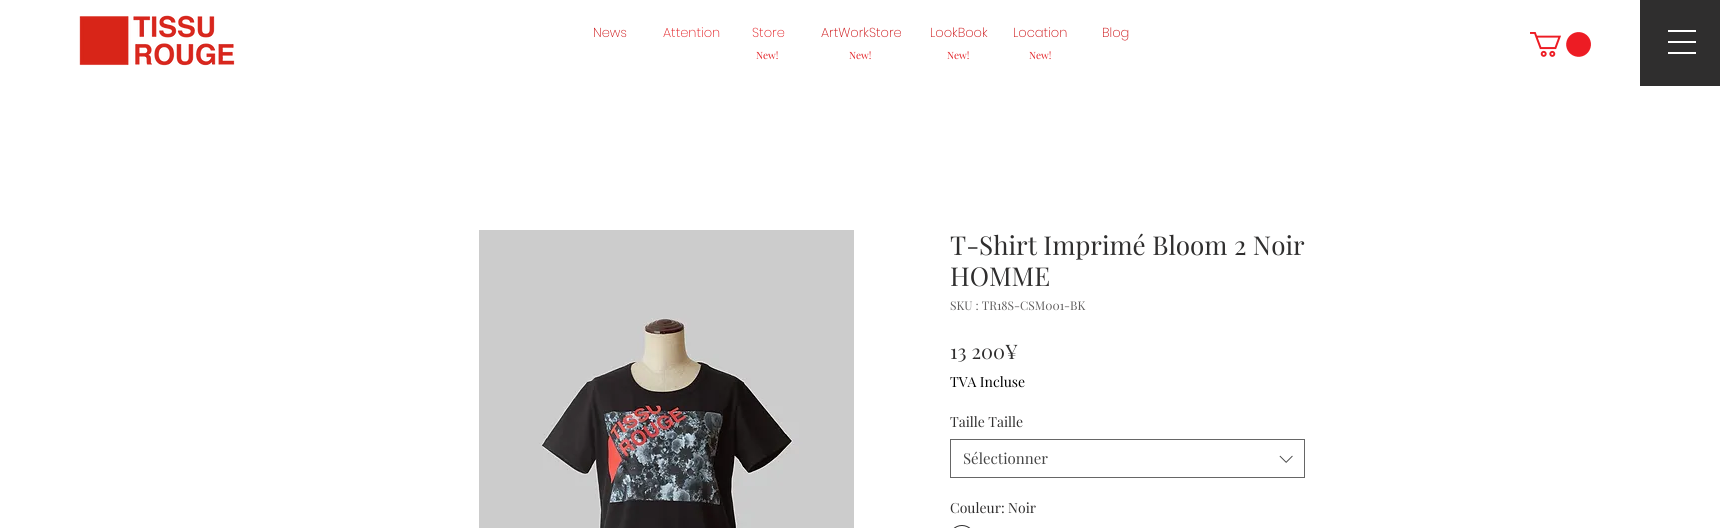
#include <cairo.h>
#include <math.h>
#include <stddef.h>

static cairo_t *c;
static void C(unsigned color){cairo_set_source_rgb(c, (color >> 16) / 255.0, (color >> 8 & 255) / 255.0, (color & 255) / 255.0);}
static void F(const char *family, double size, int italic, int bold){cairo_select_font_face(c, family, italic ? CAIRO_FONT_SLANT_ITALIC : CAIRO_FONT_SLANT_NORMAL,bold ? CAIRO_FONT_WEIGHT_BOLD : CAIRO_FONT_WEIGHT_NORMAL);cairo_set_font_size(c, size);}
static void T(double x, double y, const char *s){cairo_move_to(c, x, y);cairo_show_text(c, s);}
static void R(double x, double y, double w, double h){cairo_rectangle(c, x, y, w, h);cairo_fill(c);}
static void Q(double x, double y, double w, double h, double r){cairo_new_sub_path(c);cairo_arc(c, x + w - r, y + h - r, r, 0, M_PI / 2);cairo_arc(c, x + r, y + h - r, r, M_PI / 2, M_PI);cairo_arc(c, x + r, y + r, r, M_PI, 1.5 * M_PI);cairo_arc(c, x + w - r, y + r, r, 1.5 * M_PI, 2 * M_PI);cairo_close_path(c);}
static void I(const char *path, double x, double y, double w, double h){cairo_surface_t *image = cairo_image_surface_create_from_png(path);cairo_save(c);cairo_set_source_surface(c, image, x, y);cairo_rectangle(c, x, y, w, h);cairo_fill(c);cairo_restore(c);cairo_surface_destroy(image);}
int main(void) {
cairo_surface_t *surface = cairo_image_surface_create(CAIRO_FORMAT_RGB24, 1720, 528);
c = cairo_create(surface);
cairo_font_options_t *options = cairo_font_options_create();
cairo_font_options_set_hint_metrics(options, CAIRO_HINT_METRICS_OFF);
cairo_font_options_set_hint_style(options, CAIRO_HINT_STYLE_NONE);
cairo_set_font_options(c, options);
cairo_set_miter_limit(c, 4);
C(0xffffff);
cairo_paint(c);
I("1.png",79,15,156,51);
F("Poppins ExtraLight",13,0,0);
C(0xcc1013);
T(593,37,"News");
C(0xe21c21);
T(663,37,"Attention");
T(752,37,"Store");
C(0xcc1013);
T(821,37,"ArtWorkStore");
T(930,37,"LookBook");
T(1013,37,"Location");
T(1102,37,"Blog");
F("Playfair Display",10,0,0);
C(0xe21c21);
T(756,59,"New!");
T(849,59,"New!");
T(947,59,"New!");
T(1029,59,"New!");
I("2.png",1530,32,61,25);
C(0x2f2e2e);
R(1640,0,80,86);
C(0xffffff);
R(1668,30,28,2);
R(1668,41,28,2);
R(1668,52,28,2);
I("3.png",479,230,375,298);
F("Playfair Display",26,0,0);
C(0x2f2e2e);
T(950,255,"T-Shirt Imprimé Bloom 2 Noir");
T(950,286,"HOMME");
F("Playfair Display",12,0,0);
C(0x605e5e);
T(950,310,"SKU : TR18S-CSM001-BK");
F("Playfair Display",20,0,0);
C(0x2f2e2e);
T(950,359,"13 200¥");
F("Playfair Display",14,0,0);
C(0x000000);
T(950,387,"TVA Incluse");
C(0x2f2e2e);
T(950,427,"Taille Taille");
cairo_rectangle(c,950.5,439.5,354,38);
C(0x666666);
cairo_set_line_width(c,1);
cairo_stroke(c);
F("Playfair Display",15,0,0);
C(0x444444);
T(963,464,"Sélectionner");
I("4.png",1279,455,14,8);
F("Playfair Display",14,0,0);
C(0x2f2e2e);
T(950,513,"Couleur: Noir");
Q(949.5,525.5,25,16,12.5);
cairo_stroke(c);
cairo_surface_write_to_png(surface, "o.png");
cairo_font_options_destroy(options);
cairo_destroy(c);
cairo_surface_destroy(surface);
return 0;
}
